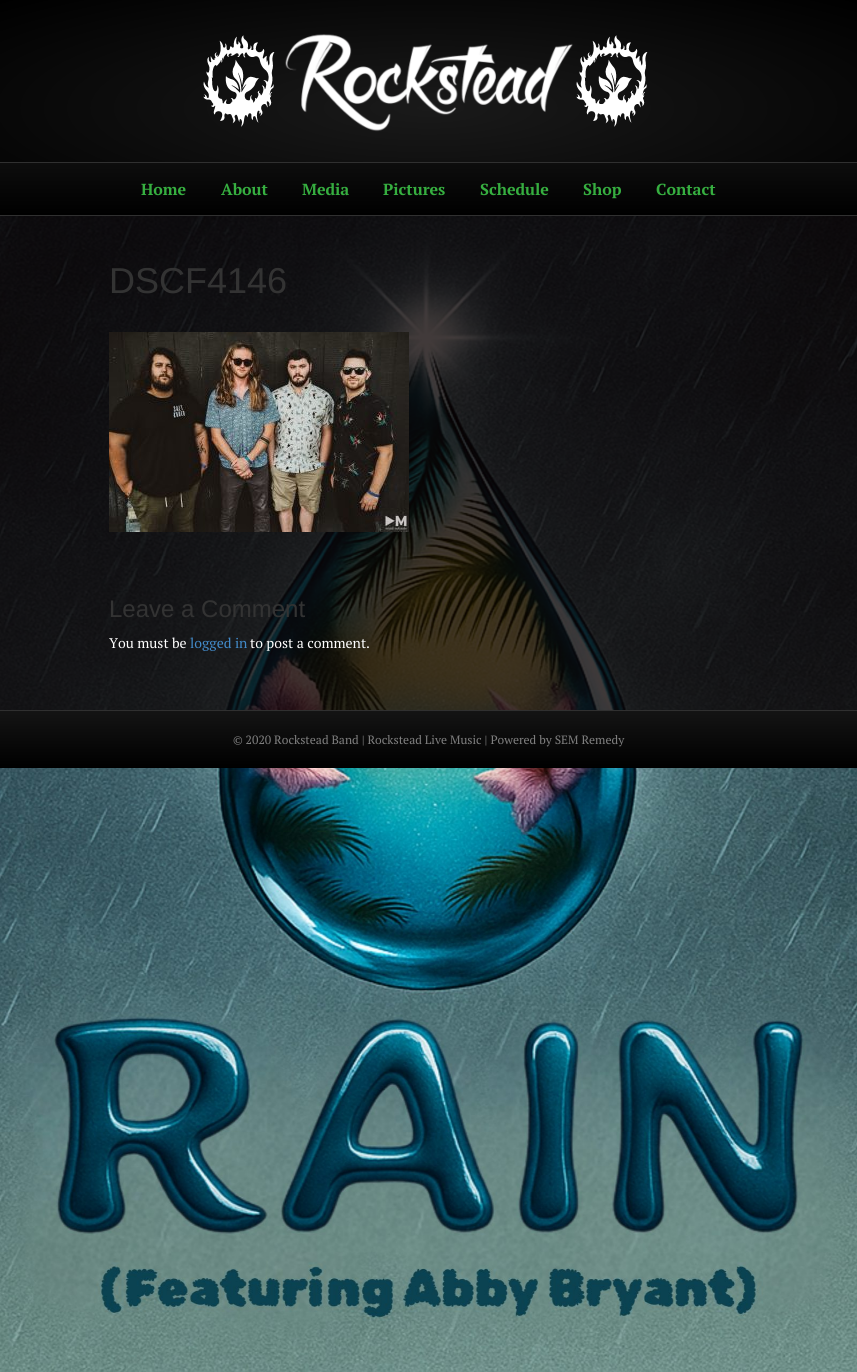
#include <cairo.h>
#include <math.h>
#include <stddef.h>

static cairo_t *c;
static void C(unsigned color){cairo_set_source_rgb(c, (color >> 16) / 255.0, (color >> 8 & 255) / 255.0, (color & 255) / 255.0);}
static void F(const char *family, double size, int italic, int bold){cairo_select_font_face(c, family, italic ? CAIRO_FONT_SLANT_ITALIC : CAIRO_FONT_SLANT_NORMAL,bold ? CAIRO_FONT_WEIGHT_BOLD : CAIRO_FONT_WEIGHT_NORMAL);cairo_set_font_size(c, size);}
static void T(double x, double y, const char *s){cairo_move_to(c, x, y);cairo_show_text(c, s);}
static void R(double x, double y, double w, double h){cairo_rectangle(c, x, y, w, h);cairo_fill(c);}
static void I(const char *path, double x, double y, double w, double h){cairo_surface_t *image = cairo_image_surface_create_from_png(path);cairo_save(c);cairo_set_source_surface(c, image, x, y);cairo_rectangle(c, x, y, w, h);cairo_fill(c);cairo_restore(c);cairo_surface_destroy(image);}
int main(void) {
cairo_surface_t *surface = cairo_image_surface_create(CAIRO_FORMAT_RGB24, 857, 1372);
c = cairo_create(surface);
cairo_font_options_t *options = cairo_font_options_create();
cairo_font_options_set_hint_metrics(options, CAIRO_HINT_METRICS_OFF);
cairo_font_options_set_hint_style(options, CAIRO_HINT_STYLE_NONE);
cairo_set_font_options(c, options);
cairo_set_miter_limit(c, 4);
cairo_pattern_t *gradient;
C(0xffffff);
cairo_paint(c);
I("1.png",0,216,857,1156);
gradient = cairo_pattern_create_radial(0,0,0,0,0,1);
cairo_pattern_set_matrix(gradient, &(cairo_matrix_t){1.0 / 606, 0, 0, 1.0 / 153, -1.0 * 429 / 606, -1.0 * 108 / 153});
cairo_pattern_add_color_stop_rgba(gradient,0,0.102,0.102,0.102,1);
cairo_pattern_add_color_stop_rgba(gradient,1,0,0,0,1);
cairo_set_source(c,gradient);
cairo_pattern_destroy(gradient);
R(0,0,857,162);
I("2.png",203,34,445,98);
gradient = cairo_pattern_create_linear(429,163,429,215);
cairo_pattern_add_color_stop_rgba(gradient,0,0.051,0.051,0.051,1);
cairo_pattern_add_color_stop_rgba(gradient,1,0,0,0,1);
cairo_set_source(c,gradient);
cairo_pattern_destroy(gradient);
R(0,163,857,52);
C(0x303030);
R(0,162,857,1);
R(0,215,857,1);
F("PT Serif",16,0,1);
C(0x36af40);
T(141,195,"Home");
T(221,195,"About");
T(302,195,"Media");
T(383,195,"Pictures");
T(480,195,"Schedule");
T(583,195,"Shop");
T(656,195,"Contact");
cairo_set_source_rgba(c,0.039,0,0,0.77);
R(0,216,857,494);
F("Liberation Sans",36,0,0);
C(0x333333);
T(109,293,"DSCF4146");
I("3.png",109,332,300,200);
F("Liberation Sans",24,0,0);
T(109,617,"Leave a Comment");
F("PT Serif",14,0,0);
C(0xffffff);
T(109,648,"You must be");
C(0x428bca);
T(190,648,"logged in");
C(0xffffff);
T(250,648,"to post a comment.");
gradient = cairo_pattern_create_linear(429,711,429,768);
cairo_pattern_add_color_stop_rgba(gradient,0,0.078,0.078,0.078,1);
cairo_pattern_add_color_stop_rgba(gradient,1,0,0,0,1);
cairo_set_source(c,gradient);
cairo_pattern_destroy(gradient);
R(0,711,857,57);
C(0x303030);
R(0,710,857,1);
F("PT Serif",12,0,0);
C(0x808080);
T(233,744,"© 2020 Rockstead Band | Rockstead Live Music | Powered by SEM Remedy");
cairo_surface_write_to_png(surface, "o.png");
cairo_font_options_destroy(options);
cairo_destroy(c);
cairo_surface_destroy(surface);
return 0;
}
